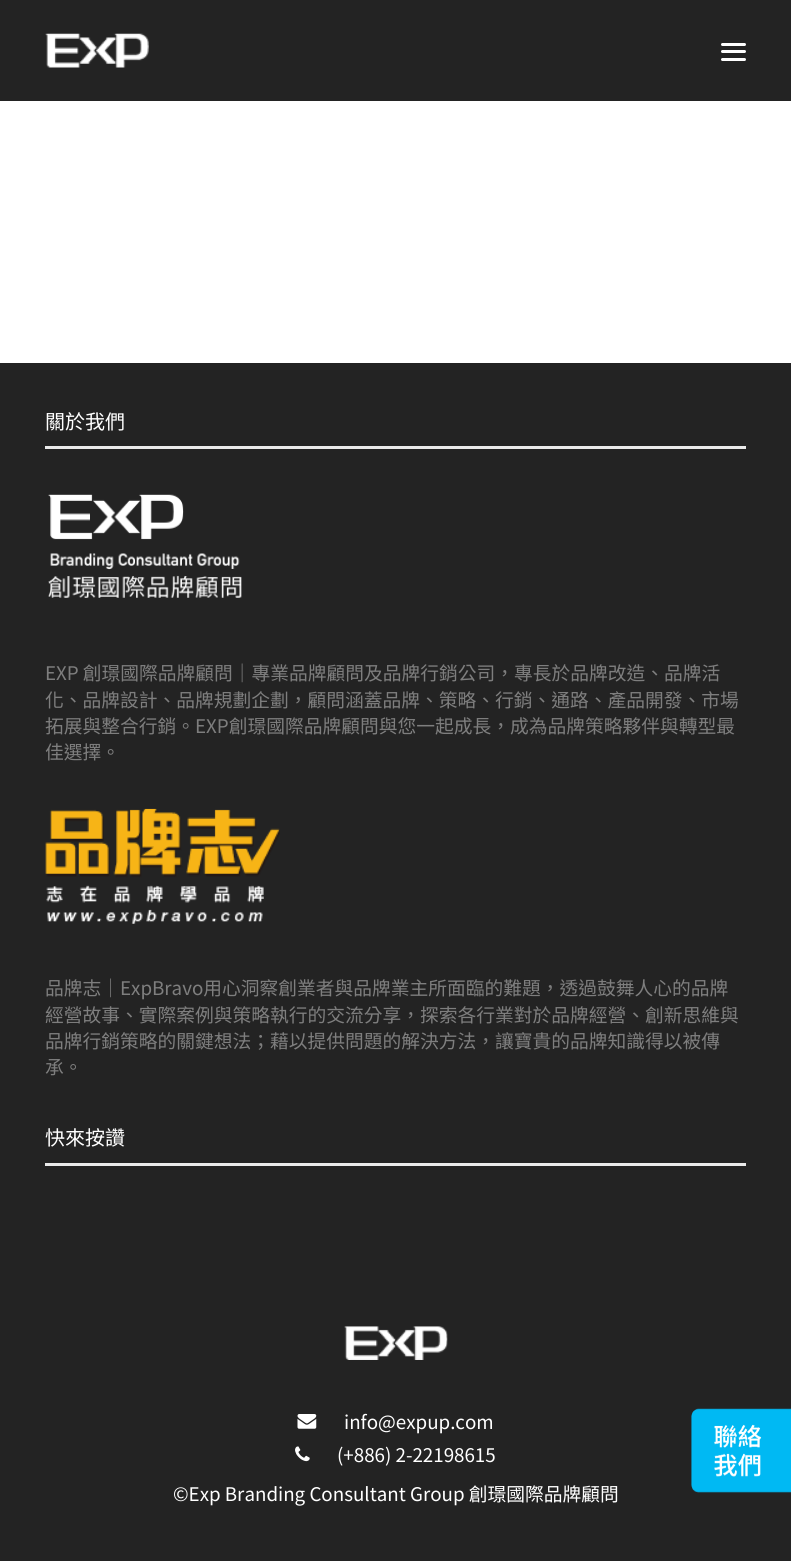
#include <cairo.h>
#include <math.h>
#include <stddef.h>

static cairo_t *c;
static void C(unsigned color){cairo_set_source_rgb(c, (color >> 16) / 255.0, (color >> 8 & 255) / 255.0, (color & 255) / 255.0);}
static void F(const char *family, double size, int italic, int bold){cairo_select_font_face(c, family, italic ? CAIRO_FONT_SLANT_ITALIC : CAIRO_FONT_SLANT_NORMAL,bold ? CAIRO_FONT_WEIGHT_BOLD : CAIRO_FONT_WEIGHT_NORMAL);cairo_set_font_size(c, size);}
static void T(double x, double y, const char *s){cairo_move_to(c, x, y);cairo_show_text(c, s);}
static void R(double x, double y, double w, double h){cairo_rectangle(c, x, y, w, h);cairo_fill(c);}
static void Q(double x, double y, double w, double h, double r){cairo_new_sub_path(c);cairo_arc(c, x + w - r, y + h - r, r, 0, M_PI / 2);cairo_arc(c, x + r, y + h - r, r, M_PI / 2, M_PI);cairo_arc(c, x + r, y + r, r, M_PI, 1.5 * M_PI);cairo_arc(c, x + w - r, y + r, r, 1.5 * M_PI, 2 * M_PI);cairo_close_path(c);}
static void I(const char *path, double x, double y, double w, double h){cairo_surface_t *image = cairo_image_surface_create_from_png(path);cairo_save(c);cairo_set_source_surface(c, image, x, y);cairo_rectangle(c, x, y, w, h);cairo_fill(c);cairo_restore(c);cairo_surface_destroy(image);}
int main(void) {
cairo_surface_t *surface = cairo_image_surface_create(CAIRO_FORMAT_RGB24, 791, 1561);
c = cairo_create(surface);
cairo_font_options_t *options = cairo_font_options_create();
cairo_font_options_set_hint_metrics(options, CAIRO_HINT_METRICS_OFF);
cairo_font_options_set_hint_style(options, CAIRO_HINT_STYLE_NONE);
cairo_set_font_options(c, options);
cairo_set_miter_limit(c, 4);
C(0x232323);
cairo_paint(c);
I("1.png",45,33,104,35);
C(0xffffff);
Q(721,50,25,3,1.5);
cairo_fill(c);
Q(721,43,25,3,1.5);
cairo_fill(c);
Q(721,58,25,3,1.5);
cairo_fill(c);
R(0,101,791,262);
F("Noto Sans TC",20,0,0);
T(45,429,"關於我們");
C(0xeaeaea);
R(45,446,701,3);
I("2.png",48,494,194,104);
F("Noto Sans TC",18.75,0,0);
C(0x7e7e7e);
T(45,680,"EXP 創璟國際品牌顧問｜專業品牌顧問及品牌行銷公司，專長於品牌改造、品牌活");
T(45,707,"化、品牌設計、品牌規劃企劃，顧問涵蓋品牌、策略、行銷、通路、產品開發、市場");
T(45,733,"拓展與整合行銷。EXP創璟國際品牌顧問與您一起成長，成為品牌策略夥伴與轉型最");
T(45,759,"佳選擇。");
I("3.png",45,808,235,116);
T(45,995,"品牌志｜ExpBravo用心洞察創業者與品牌業主所面臨的難題，透過鼓舞人心的品牌");
T(45,1022,"經營故事、實際案例與策略執行的交流分享，探索各行業對於品牌經營、創新思維與");
T(45,1048,"品牌行銷策略的關鍵想法；藉以提供問題的解決方法，讓寶貴的品牌知識得以被傳");
T(45,1074,"承。");
F("Noto Sans TC",20,0,0);
C(0xffffff);
T(45,1145,"快來按讚");
C(0xeaeaea);
R(45,1163,701,3);
I("4.png",344,1326,104,34);
I("5.png",297,1414,20,15);
F("Noto Sans TC",18.75,0,0);
C(0xffffff);
T(344,1429,"info@expup.com");
I("6.png",295,1446,15,16);
T(337,1462,"(+886) 2-22198615");
T(173,1501,"©Exp Branding Consultant Group 創璟國際品牌顧問");
I("7.png",691,1408,100,85);
cairo_surface_write_to_png(surface, "o.png");
cairo_font_options_destroy(options);
cairo_destroy(c);
cairo_surface_destroy(surface);
return 0;
}
